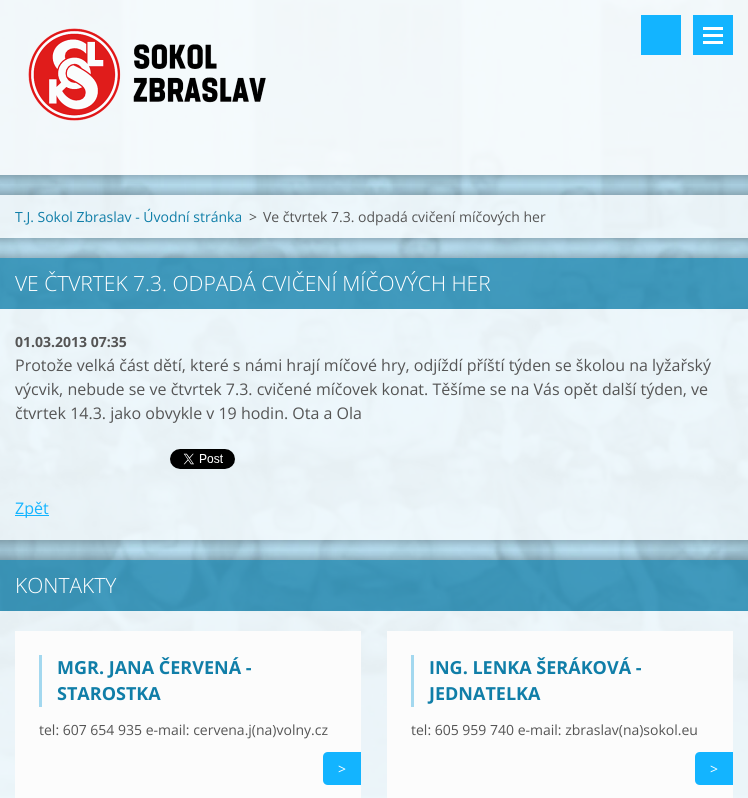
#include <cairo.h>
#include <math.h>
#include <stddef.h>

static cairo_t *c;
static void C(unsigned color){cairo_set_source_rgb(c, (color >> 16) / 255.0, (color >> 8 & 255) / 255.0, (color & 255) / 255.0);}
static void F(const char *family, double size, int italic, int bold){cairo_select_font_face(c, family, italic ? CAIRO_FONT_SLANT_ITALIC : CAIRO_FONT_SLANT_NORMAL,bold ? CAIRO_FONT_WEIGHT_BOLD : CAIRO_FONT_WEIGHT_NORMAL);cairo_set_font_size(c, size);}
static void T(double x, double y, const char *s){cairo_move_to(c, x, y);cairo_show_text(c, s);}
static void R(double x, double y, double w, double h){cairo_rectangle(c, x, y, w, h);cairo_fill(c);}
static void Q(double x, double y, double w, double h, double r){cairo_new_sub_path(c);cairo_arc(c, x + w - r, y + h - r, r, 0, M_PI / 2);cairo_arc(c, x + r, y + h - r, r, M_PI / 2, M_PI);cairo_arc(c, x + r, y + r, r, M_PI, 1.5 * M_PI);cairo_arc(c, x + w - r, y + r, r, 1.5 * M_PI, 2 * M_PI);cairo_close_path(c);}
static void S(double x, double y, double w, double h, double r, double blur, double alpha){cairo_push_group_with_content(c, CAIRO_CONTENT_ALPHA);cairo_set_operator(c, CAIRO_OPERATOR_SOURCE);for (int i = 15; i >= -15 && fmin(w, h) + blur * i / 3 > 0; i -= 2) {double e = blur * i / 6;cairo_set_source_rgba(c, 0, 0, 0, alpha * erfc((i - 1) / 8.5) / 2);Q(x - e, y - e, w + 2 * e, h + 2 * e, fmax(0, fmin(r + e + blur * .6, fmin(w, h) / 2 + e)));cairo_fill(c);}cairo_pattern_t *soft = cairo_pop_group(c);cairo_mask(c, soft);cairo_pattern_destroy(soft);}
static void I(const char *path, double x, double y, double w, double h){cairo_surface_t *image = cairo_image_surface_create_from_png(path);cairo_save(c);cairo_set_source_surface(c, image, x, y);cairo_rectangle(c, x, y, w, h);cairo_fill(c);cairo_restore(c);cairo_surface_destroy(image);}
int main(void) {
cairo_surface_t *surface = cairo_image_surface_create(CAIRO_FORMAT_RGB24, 748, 798);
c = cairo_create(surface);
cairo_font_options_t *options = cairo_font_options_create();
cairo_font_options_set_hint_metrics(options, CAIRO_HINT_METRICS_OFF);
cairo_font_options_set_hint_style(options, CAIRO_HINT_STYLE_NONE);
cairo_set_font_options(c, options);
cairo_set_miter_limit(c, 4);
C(0xffffff);
cairo_paint(c);
I("1.png",0,0,748,798);
cairo_save(c);
cairo_rectangle(c,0,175,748,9);
cairo_clip(c);
C(0x000000);
S(-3,-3,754,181,0,4.5,.25);
cairo_restore(c);
cairo_set_source_rgba(c,1,1,1,0.85);
R(0,0,748,175);
I("2.png",28,28,238,93);
C(0x13b4ff);
R(641,15,40,40);
R(693,15,40,40);
C(0xffffff);
R(703,27,20,3);
R(703,34,20,3);
R(703,41,20,3);
cairo_save(c);
cairo_set_fill_rule(c,CAIRO_FILL_RULE_EVEN_ODD);
cairo_new_path(c);
cairo_move_to(c,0,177);
cairo_line_to(c,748,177);
cairo_line_to(c,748,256);
cairo_line_to(c,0,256);
cairo_close_path(c);
cairo_move_to(c,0,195);
cairo_line_to(c,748,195);
cairo_line_to(c,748,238);
cairo_line_to(c,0,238);
cairo_close_path(c);
cairo_clip(c);
C(0x000000);
S(-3,192,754,49,0,4.5,.25);
cairo_restore(c);
cairo_set_source_rgba(c,1,1,1,0.75);
R(0,195,748,43);
F("Open Sans",14,0,0);
C(0x107ea8);
T(15,222,"T.J. Sokol Zbraslav - Úvodní stránka");
C(0x555555);
T(249,222,">");
T(263,222,"Ve čtvrtek 7.3. odpadá cvičení míčových her");
cairo_save(c);
cairo_set_fill_rule(c,CAIRO_FILL_RULE_EVEN_ODD);
cairo_new_path(c);
cairo_move_to(c,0,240);
cairo_line_to(c,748,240);
cairo_line_to(c,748,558);
cairo_line_to(c,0,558);
cairo_close_path(c);
cairo_move_to(c,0,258);
cairo_line_to(c,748,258);
cairo_line_to(c,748,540);
cairo_line_to(c,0,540);
cairo_close_path(c);
cairo_clip(c);
C(0x000000);
S(-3,255,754,288,0,4.5,.25);
cairo_restore(c);
cairo_set_source_rgba(c,0.063,0.494,0.659,0.71);
R(0,258,748,51);
F("Open Sans Light",21,0,0);
C(0xffffff);
T(15,291,"VE ČTVRTEK 7.3. ODPADÁ CVIČENÍ MÍČOVÝCH HER");
cairo_set_source_rgba(c,1,1,1,0.75);
R(0,309,748,140);
F("Open Sans",14,0,1);
C(0x555555);
T(15,347,"01.03.2013 07:35");
F("Open Sans",16,0,0);
T(15,371,"Protože velká část dětí, které s námi hrají míčové hry, odjíždí příští týden se školou na lyžařský");
T(15,395,"výcvik, nebude se ve čtvrtek 7.3. cvičené míčovek konat. Těšíme se na Vás opět další týden, ve");
T(15,419,"čtvrtek 14.3. jako obvykle v 19 hodin. Ota a Ola");
cairo_set_source_rgba(c,1,1,1,0.75);
R(0,449,748,91);
I("3.png",170,449,65,20);
C(0x13b4ff);
R(15,515,34,1);
T(15,514,"Zpět");
cairo_save(c);
cairo_rectangle(c,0,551,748,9);
cairo_clip(c);
C(0x000000);
S(-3,557,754,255,0,4.5,.25);
cairo_restore(c);
cairo_set_source_rgba(c,0.063,0.494,0.659,0.71);
R(0,560,748,51);
F("Open Sans Light",21,0,0);
C(0xffffff);
T(15,593,"KONTAKTY");
cairo_set_source_rgba(c,1,1,1,0.75);
R(0,611,748,187);
C(0xfcfcfc);
R(15,631,346,167);
C(0xa3d8ef);
R(39,655,3,52);
F("Open Sans",18,0,1);
C(0x107ea8);
T(57,674,"MGR. JANA ČERVENÁ -");
T(57,700,"STAROSTKA");
F("Open Sans",14,0,0);
C(0x555555);
T(39,735,"tel: 607 654 935 e-mail: cervena.j(na)volny.cz");
C(0x13b4ff);
cairo_new_path(c);
cairo_move_to(c,328,752);
cairo_line_to(c,361,752);
cairo_line_to(c,361,785);
cairo_line_to(c,328,785);
cairo_curve_to(c,325,785,323,783,323,780);
cairo_line_to(c,323,757);
cairo_curve_to(c,323,754,325,752,328,752);
cairo_close_path(c);
cairo_fill(c);
C(0xffffff);
T(338,774,">");
C(0xfcfcfc);
R(387,631,346,167);
C(0xa3d8ef);
R(411,655,3,52);
F("Open Sans",18,0,1);
C(0x107ea8);
T(429,674,"ING. LENKA ŠERÁKOVÁ -");
T(429,700,"JEDNATELKA");
F("Open Sans",14,0,0);
C(0x555555);
T(411,735,"tel: 605 959 740 e-mail: zbraslav(na)sokol.eu");
C(0x13b4ff);
cairo_new_path(c);
cairo_move_to(c,700,752);
cairo_line_to(c,733,752);
cairo_line_to(c,733,785);
cairo_line_to(c,700,785);
cairo_curve_to(c,697,785,695,783,695,780);
cairo_line_to(c,695,757);
cairo_curve_to(c,695,754,697,752,700,752);
cairo_close_path(c);
cairo_fill(c);
C(0xffffff);
T(710,774,">");
cairo_surface_write_to_png(surface, "o.png");
cairo_font_options_destroy(options);
cairo_destroy(c);
cairo_surface_destroy(surface);
return 0;
}
